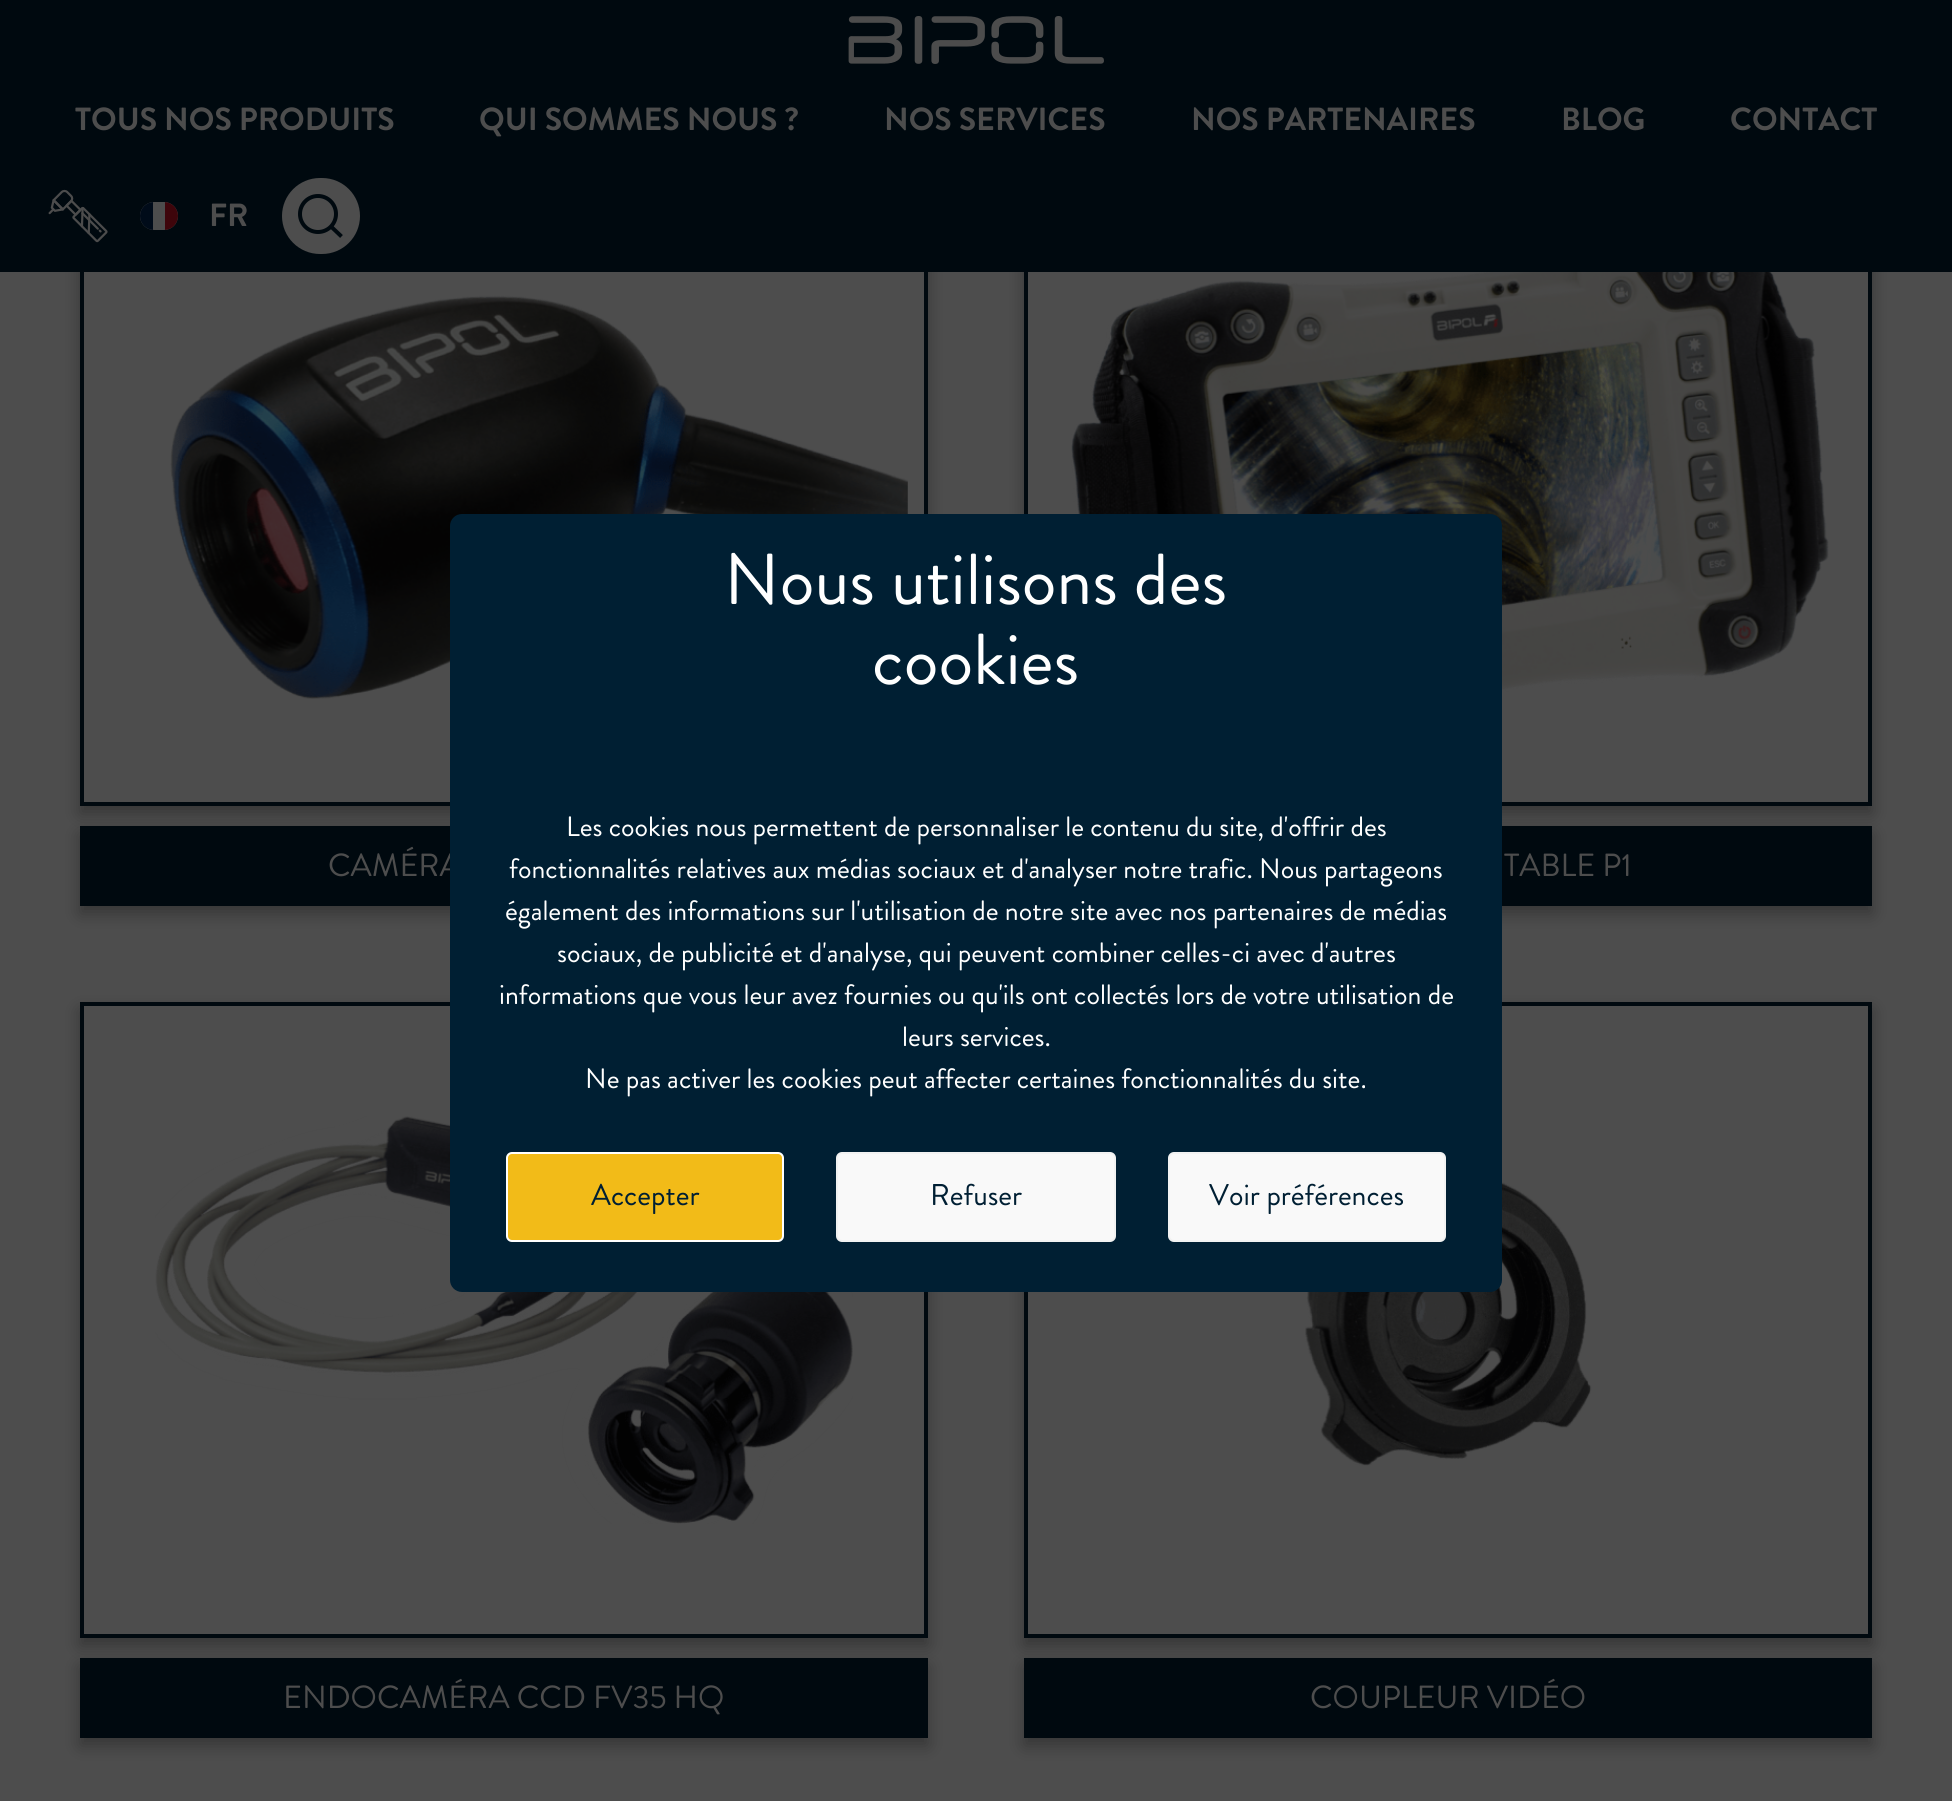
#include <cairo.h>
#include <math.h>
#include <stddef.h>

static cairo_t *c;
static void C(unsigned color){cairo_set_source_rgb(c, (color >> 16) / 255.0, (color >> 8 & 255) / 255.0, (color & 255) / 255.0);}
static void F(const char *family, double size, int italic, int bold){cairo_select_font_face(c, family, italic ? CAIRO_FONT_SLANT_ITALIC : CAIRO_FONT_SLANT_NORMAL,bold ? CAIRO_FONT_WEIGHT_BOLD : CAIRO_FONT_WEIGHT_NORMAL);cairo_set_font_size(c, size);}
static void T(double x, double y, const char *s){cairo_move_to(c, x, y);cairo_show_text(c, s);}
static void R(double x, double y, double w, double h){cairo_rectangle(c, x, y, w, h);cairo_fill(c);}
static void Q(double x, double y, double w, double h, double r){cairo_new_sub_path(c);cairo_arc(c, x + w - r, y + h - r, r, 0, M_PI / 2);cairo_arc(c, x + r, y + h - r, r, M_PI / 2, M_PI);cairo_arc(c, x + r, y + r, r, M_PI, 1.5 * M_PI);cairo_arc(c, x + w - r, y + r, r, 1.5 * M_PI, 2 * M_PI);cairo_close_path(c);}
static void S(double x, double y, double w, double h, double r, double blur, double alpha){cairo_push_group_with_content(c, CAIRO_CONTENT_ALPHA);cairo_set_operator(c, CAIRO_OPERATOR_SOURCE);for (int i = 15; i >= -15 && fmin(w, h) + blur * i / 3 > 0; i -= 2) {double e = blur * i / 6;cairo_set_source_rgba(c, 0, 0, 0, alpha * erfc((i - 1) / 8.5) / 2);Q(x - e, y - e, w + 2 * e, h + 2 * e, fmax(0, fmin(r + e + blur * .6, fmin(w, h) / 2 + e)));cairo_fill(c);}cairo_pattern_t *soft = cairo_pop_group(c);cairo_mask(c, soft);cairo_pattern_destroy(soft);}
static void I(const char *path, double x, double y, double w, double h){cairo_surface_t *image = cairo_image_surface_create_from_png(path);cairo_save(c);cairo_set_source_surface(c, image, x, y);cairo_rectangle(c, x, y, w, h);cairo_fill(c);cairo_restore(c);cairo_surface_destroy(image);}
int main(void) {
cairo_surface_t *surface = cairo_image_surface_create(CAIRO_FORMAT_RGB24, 1952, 1801);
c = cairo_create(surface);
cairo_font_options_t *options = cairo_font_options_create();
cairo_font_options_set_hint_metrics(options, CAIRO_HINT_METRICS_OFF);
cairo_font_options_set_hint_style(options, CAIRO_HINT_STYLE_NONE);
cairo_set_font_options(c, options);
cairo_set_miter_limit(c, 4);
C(0x4d4d4d);
cairo_paint(c);
C(0x000000);
S(80,834,848,80,0,8,.3);
C(0x00090f);
R(80,826,370,80);
cairo_save(c);
cairo_set_fill_rule(c,CAIRO_FILL_RULE_EVEN_ODD);
cairo_new_path(c);
cairo_move_to(c,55,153);
cairo_line_to(c,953,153);
cairo_line_to(c,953,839);
cairo_line_to(c,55,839);
cairo_close_path(c);
cairo_move_to(c,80,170);
cairo_line_to(c,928,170);
cairo_line_to(c,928,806);
cairo_line_to(c,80,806);
cairo_close_path(c);
cairo_clip(c);
C(0x000000);
S(80,178,848,636,0,8,.3);
cairo_restore(c);
cairo_rectangle(c,82,172,844,632);
cairo_set_line_width(c,4);
cairo_stroke(c);
C(0x000000);
S(1024,834,848,80,0,8,.3);
C(0x00090f);
R(1502,826,370,80);
cairo_save(c);
cairo_set_fill_rule(c,CAIRO_FILL_RULE_EVEN_ODD);
cairo_new_path(c);
cairo_move_to(c,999,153);
cairo_line_to(c,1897,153);
cairo_line_to(c,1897,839);
cairo_line_to(c,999,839);
cairo_close_path(c);
cairo_move_to(c,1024,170);
cairo_line_to(c,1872,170);
cairo_line_to(c,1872,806);
cairo_line_to(c,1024,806);
cairo_close_path(c);
cairo_clip(c);
C(0x000000);
S(1024,178,848,636,0,8,.3);
cairo_restore(c);
cairo_rectangle(c,1026,172,844,632);
cairo_stroke(c);
R(0,0,1952,272);
I("1.png",848,16,256,48);
F("Brandon Grotesque",32,0,1);
C(0x4d4d4d);
T(75,130,"TOUS NOS PRODUITS");
T(479,130,"QUI SOMMES NOUS ?");
T(884,130,"NOS SERVICES");
T(1191,130,"NOS PARTENAIRES");
T(1561,130,"BLOG");
T(1730,130,"CONTACT");
I("2.png",48,189,60,54);
Q(140,202,38,28,14);
cairo_fill(c);
cairo_save(c);
Q(140,202,38,28,14);
cairo_clip(c);
C(0x000b19);
R(140,202,13,28);
C(0x3e050b);
R(165,202,13,28);
cairo_restore(c);
T(209,226,"FR");
Q(282,178,78,76,38);
cairo_fill(c);
cairo_arc(c,318,214,18,0,2 * M_PI);
C(0x00090f);
cairo_stroke(c);
cairo_new_path(c);
cairo_move_to(c,341.5,236.5);
cairo_line_to(c,331.5,227);
cairo_stroke(c);
I("3.png",170,295,738,404);
F("Brandon Grotesque",32,0,0);
C(0x4d4d4d);
T(328,876,"CAMÉRA");
I("4.png",1071,272,758,420);
C(0x000000);
S(80,1666,848,80,0,8,.3);
C(0x00090f);
R(80,1658,848,80);
cairo_save(c);
cairo_set_fill_rule(c,CAIRO_FILL_RULE_EVEN_ODD);
cairo_new_path(c);
cairo_move_to(c,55,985);
cairo_line_to(c,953,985);
cairo_line_to(c,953,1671);
cairo_line_to(c,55,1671);
cairo_close_path(c);
cairo_move_to(c,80,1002);
cairo_line_to(c,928,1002);
cairo_line_to(c,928,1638);
cairo_line_to(c,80,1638);
cairo_close_path(c);
cairo_clip(c);
C(0x000000);
S(80,1010,848,636,0,8,.3);
cairo_restore(c);
cairo_rectangle(c,82,1004,844,632);
cairo_stroke(c);
I("5.png",155,1116,698,408);
C(0x000000);
S(1024,1666,848,80,0,8,.3);
C(0x00090f);
R(1024,1658,848,80);
cairo_save(c);
cairo_set_fill_rule(c,CAIRO_FILL_RULE_EVEN_ODD);
cairo_new_path(c);
cairo_move_to(c,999,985);
cairo_line_to(c,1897,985);
cairo_line_to(c,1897,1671);
cairo_line_to(c,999,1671);
cairo_close_path(c);
cairo_move_to(c,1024,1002);
cairo_line_to(c,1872,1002);
cairo_line_to(c,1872,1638);
cairo_line_to(c,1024,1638);
cairo_close_path(c);
cairo_clip(c);
C(0x000000);
S(1024,1010,848,636,0,8,.3);
cairo_restore(c);
cairo_rectangle(c,1026,1004,844,632);
cairo_stroke(c);
I("6.png",1305,1182,287,284);
C(0x001f33);
Q(450,514,1052,778,12);
cairo_fill(c);
F("Brandon Grotesque",72,0,0);
C(0xffffff);
T(724,604,"Nous utilisons des");
T(872,684,"cookies");
F("Brandon Grotesque",28,0,0);
T(566,836,"Les cookies nous permettent de personnaliser le contenu du site, d'offrir des");
T(509,878,"fonctionnalités relatives aux médias sociaux et d'analyser notre trafic. Nous partageons");
T(505,920,"également des informations sur l'utilisation de notre site avec nos partenaires de médias");
T(557,962,"sociaux, de publicité et d'analyse, qui peuvent combiner celles-ci avec d'autres");
T(499,1004,"informations que vous leur avez fournies ou qu'ils ont collectés lors de votre utilisation de");
T(902,1046,"leurs services.");
T(585,1088,"Ne pas activer les cookies peut affecter certaines fonctionnalités du site.");
C(0xf2bb18);
Q(507,1153,276,88,5);
cairo_fill_preserve(c);
C(0xffffff);
cairo_set_line_width(c,2);
cairo_stroke(c);
F("Brandon Grotesque",30,0,0);
C(0x001f33);
T(591,1205,"Accepter");
C(0xf9f9f9);
Q(837,1153,278,88,5);
cairo_fill_preserve(c);
C(0xf2f2f2);
cairo_stroke(c);
C(0x001f33);
T(930,1205,"Refuser");
C(0xf9f9f9);
Q(1169,1153,276,88,5);
cairo_fill_preserve(c);
C(0xf2f2f2);
cairo_stroke(c);
C(0x001f33);
T(1209,1205,"Voir préférences");
F("Brandon Grotesque",32,0,0);
C(0x4d4d4d);
T(1504,876,"TABLE P1");
T(283,1708,"ENDOCAMÉRA CCD FV35 HQ");
T(1310,1708,"COUPLEUR VIDÉO");
cairo_surface_write_to_png(surface, "o.png");
cairo_font_options_destroy(options);
cairo_destroy(c);
cairo_surface_destroy(surface);
return 0;
}
